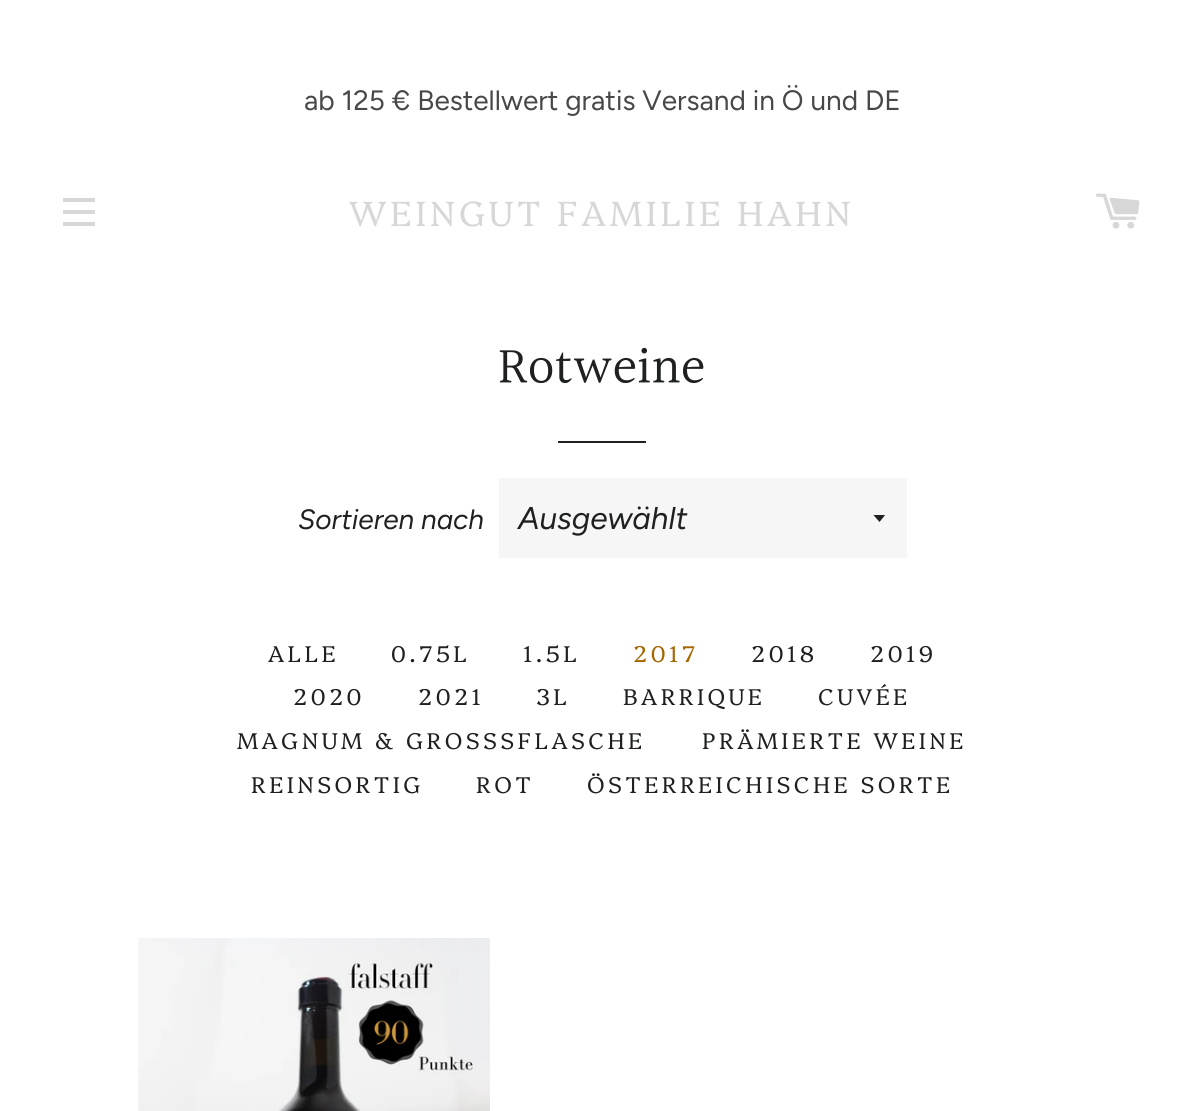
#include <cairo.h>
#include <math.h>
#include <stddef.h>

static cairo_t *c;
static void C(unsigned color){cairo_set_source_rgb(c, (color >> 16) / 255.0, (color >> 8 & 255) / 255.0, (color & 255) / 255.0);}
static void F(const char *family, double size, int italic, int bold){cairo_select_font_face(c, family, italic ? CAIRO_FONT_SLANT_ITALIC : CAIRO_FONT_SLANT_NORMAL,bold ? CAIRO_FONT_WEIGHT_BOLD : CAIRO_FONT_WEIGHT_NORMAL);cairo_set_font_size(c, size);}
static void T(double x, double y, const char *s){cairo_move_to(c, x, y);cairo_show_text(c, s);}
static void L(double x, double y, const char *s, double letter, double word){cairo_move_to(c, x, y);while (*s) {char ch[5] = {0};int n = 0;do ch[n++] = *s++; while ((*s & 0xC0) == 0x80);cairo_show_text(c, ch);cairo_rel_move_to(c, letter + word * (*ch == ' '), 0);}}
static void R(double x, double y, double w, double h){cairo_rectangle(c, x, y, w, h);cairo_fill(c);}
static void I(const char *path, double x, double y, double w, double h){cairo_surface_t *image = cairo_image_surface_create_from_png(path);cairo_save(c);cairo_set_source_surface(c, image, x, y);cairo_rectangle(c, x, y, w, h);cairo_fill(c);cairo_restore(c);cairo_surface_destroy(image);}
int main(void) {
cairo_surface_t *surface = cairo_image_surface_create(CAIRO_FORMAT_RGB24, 1204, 1111);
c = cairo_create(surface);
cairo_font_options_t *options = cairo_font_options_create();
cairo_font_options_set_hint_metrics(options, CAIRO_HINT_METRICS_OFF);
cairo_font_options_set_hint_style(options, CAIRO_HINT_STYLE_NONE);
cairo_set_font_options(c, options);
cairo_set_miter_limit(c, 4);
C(0xffffff);
cairo_paint(c);
F("Figtree",28,0,0);
C(0x484848);
T(304,110,"ab 125 € Bestellwert gratis Versand in Ö und DE");
C(0xd7d7d7);
R(63,198,32,4);
R(63,210,32,4);
R(63,222,32,4);
F("Platypi Light",35,0,0);
L(349,226,"WEINGUT FAMILIE HAHN",3.5,0);
I("1.png",1096,193,44,36);
F("Halant",52.5,0,0);
C(0x1f2021);
T(498,385,"Rotweine");
R(558,441,88,2);
F("Figtree",28,1,0);
T(298,529,"Sortieren nach");
C(0xf6f6f6);
R(499,478,408,80);
cairo_save(c);
cairo_rectangle(c,873,515,14,8);
cairo_clip(c);
C(0x1f2021);
cairo_new_path(c);
cairo_move_to(c,873,514.5);
cairo_line_to(c,879.5,522);
cairo_line_to(c,885.5,514.5);
cairo_close_path(c);
cairo_fill(c);
cairo_restore(c);
F("Figtree",31.5,1,0);
C(0x1f2021);
T(518,529,"Ausgewählt");
F("Platypi Light",22.75,0,0);
L(268,662,"ALLE",3.4,0);
L(391,662,"0.75L",3.4,0);
L(523,662,"1.5L",3.4,0);
C(0xa56600);
L(633,662,"2017",3.4,0);
C(0x1f2021);
L(751,662,"2018",3.4,0);
L(870,662,"2019",3.4,0);
L(293,705,"2020",3.4,0);
L(418,705,"2021",3.4,0);
L(536,705,"3L",3.4,0);
L(623,705,"BARRIQUE",3.4,0);
L(818,705,"CUVÉE",3.4,0);
L(237,749,"MAGNUM & GROSSSFLASCHE",3.4,0);
L(702,749,"PRÄMIERTE WEINE",3.4,0);
L(251,793,"REINSORTIG",3.4,0);
L(476,793,"ROT",3.4,0);
L(587,793,"ÖSTERREICHISCHE SORTE",3.4,0);
I("2.png",138,938,352,173);
cairo_surface_write_to_png(surface, "o.png");
cairo_font_options_destroy(options);
cairo_destroy(c);
cairo_surface_destroy(surface);
return 0;
}
